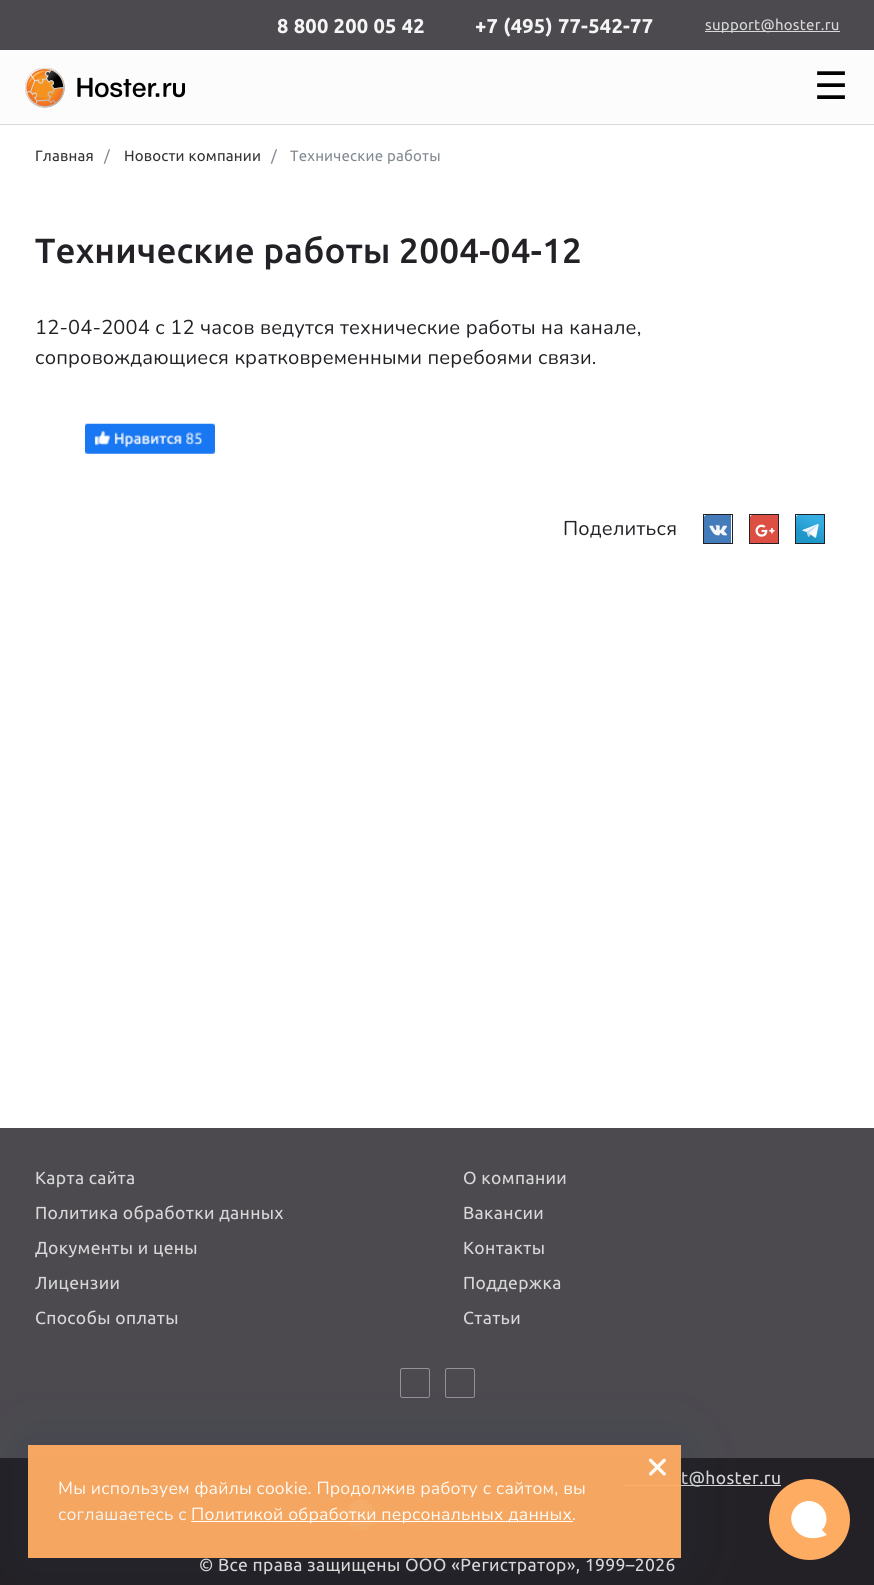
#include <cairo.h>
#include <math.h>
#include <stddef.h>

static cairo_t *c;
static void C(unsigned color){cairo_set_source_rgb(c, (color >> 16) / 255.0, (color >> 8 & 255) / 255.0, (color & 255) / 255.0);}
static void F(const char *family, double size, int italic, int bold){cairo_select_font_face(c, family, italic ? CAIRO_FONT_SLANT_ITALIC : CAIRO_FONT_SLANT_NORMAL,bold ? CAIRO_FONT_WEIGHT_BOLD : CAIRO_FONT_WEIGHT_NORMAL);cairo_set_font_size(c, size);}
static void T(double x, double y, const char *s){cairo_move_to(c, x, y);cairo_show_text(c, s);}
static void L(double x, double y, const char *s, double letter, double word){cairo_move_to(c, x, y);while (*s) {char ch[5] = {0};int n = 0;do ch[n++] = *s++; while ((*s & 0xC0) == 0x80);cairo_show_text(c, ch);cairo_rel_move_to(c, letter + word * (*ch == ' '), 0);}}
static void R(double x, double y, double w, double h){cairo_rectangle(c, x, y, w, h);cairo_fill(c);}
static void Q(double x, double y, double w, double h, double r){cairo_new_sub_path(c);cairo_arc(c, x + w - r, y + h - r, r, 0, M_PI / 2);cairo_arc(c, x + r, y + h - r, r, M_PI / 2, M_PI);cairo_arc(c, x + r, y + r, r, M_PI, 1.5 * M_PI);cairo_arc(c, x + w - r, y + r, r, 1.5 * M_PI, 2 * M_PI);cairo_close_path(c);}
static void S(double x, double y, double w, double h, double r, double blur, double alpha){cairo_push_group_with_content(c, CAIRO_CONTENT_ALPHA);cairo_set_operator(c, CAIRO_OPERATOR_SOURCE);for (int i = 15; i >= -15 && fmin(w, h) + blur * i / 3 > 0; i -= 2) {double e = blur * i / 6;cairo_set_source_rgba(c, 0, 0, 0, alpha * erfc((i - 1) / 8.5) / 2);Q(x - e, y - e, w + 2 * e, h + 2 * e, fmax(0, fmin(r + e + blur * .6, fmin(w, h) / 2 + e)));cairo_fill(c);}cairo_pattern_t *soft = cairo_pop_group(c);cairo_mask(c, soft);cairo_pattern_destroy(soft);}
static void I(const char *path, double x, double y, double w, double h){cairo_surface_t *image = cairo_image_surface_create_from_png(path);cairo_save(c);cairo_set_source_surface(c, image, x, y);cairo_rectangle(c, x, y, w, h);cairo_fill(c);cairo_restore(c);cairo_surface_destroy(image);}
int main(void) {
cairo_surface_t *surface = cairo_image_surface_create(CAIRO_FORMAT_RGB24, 874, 1585);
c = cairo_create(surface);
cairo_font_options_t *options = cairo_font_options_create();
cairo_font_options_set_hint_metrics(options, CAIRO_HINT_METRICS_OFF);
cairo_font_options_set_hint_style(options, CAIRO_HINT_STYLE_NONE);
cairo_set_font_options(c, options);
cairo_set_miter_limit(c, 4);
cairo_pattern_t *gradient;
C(0xffffff);
cairo_paint(c);
C(0x4c4a4f);
R(0,0,874,50);
F("Ubuntu",20,0,1);
C(0xf4f4f4);
L(277,33,"8 800 200 05 42",.25,0);
L(475,33,"+7 (495) 77-542-77",.25,0);
C(0xd8d8d9);
R(705,31,135,1);
F("Ubuntu",15,0,0);
L(705,30,"support@hoster.ru",.25,0);
C(0xfcfcfc);
R(0,50,874,74);
C(0xd8d8d9);
R(0,124,874,1);
I("1.png",25,68,160,40);
F("DejaVu Sans",38,0,0);
C(0x000000);
T(814,99,"☰");
F("Ubuntu",15,0,0);
C(0x343434);
L(35,161,"Главная",.2,0);
C(0x818a91);
L(104,161,"/",.2,0);
C(0x343434);
L(124,161,"Новости компании",.2,0);
C(0x818a91);
L(271,161,"/",.2,0);
L(290,161,"Технические работы",.2,0);
F("Ubuntu Medium",35,0,0);
C(0x242126);
L(35,263,"Технические работы 2004-04-12",.2,0);
F("Nunito",20,0,0);
L(35,334,"12-04-2004 с 12 часов ведутся технические работы на канале,",.2,0);
L(35,364,"сопровождающиеся кратковременными перебоями связи.",.2,0);
I("2.png",85,423,130,31);
L(563,535,"Поделиться",.2,0);
cairo_rectangle(c,703.5,514.5,29,29);
cairo_set_line_width(c,1);
cairo_stroke(c);
I("3.png",704,515,27,28);
cairo_rectangle(c,749.5,514.5,29,29);
cairo_stroke(c);
I("4.png",750,515,28,28);
cairo_rectangle(c,795.5,514.5,29,29);
cairo_stroke(c);
I("5.png",796,515,28,28);
C(0x4c4a4f);
R(0,1128,874,330);
Q(400.5,1368.5,29,29,2);
C(0x979099);
cairo_stroke(c);
Q(445.5,1368.5,29,29,2);
cairo_stroke(c);
C(0x242126);
R(0,1458,874,127);
C(0xd8d8d9);
R(624,1485,157,1);
gradient = cairo_pattern_create_linear(369,1497,353,1533);
cairo_pattern_add_color_stop_rgba(gradient,.22,0.216,0.682,0.886,1);
cairo_pattern_add_color_stop_rgba(gradient,.7,0.118,0.588,0.784,1);
cairo_set_source(c,gradient);
cairo_pattern_destroy(gradient);
cairo_arc(c,361,1515,15,0,2 * M_PI);
cairo_fill(c);
C(0xd8d8d9);
R(386,1521,143,1);
F("Ubuntu",17.5,0,0);
L(681,1484,"t@hoster.ru",.35,0);
C(0xffac63);
cairo_new_path(c);
cairo_arc(c,809.5,1519.5,40.5,0,2 * M_PI);
cairo_fill(c);
cairo_save(c);
cairo_set_fill_rule(c,CAIRO_FILL_RULE_EVEN_ODD);
cairo_new_path(c);
cairo_move_to(c,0,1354);
cairo_line_to(c,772,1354);
cairo_line_to(c,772,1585);
cairo_line_to(c,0,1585);
cairo_close_path(c);
cairo_move_to(c,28,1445);
cairo_line_to(c,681,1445);
cairo_line_to(c,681,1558);
cairo_line_to(c,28,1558);
cairo_close_path(c);
cairo_clip(c);
C(0x113856);
S(28,1445,653,113,0,30,.19);
cairo_restore(c);
cairo_set_source_rgba(c,1,0.675,0.388,0.95);
R(28,1445,653,113);
F("Nunito",38,0,1);
C(0xfefbf7);
T(646,1478,"×");
F("Nunito",17.5,0,0);
L(58,1494,"Мы используем файлы cookie. Продолжив работу с сайтом, вы",.2,0);
C(0xf4f4f4);
L(58,1520,"соглашаетесь с",.2,0);
cairo_set_source_rgba(c,1,1,1,0.95);
R(191,1521,382,1);
C(0xfefbf7);
L(191,1520,"Политикой обработки персональных данных",.2,0);
C(0xf4f4f4);
L(572,1520,".",.2,0);
F("Ubuntu",17.5,0,0);
C(0xd8d8d9);
L(35,1184,"Карта сайта",.35,0);
L(463,1184,"О компании",.35,0);
L(35,1219,"Политика обработки данных",.35,0);
L(463,1219,"Вакансии",.35,0);
L(35,1254,"Документы и цены",.35,0);
L(463,1254,"Контакты",.35,0);
L(35,1289,"Лицензии",.35,0);
L(463,1289,"Поддержка",.35,0);
L(35,1324,"Способы оплаты",.35,0);
L(463,1324,"Статьи",.35,0);
L(199,1571,"© Все права защищены ООО «Регистратор», 1999–2026",.35,0);
C(0xffffff);
cairo_set_fill_rule(c,CAIRO_FILL_RULE_EVEN_ODD);
cairo_new_path(c);
cairo_move_to(c,794,1528);
cairo_curve_to(c,794,1528,803,1545,827,1535);
cairo_line_to(c,822,1530);
cairo_curve_to(c,834,1517,820,1496,803,1502);
cairo_curve_to(c,798,1504,795,1507,793,1511);
cairo_curve_to(c,790,1517,791,1523,794,1528);
cairo_close_path(c);
cairo_fill(c);
cairo_surface_write_to_png(surface, "o.png");
cairo_font_options_destroy(options);
cairo_destroy(c);
cairo_surface_destroy(surface);
return 0;
}
